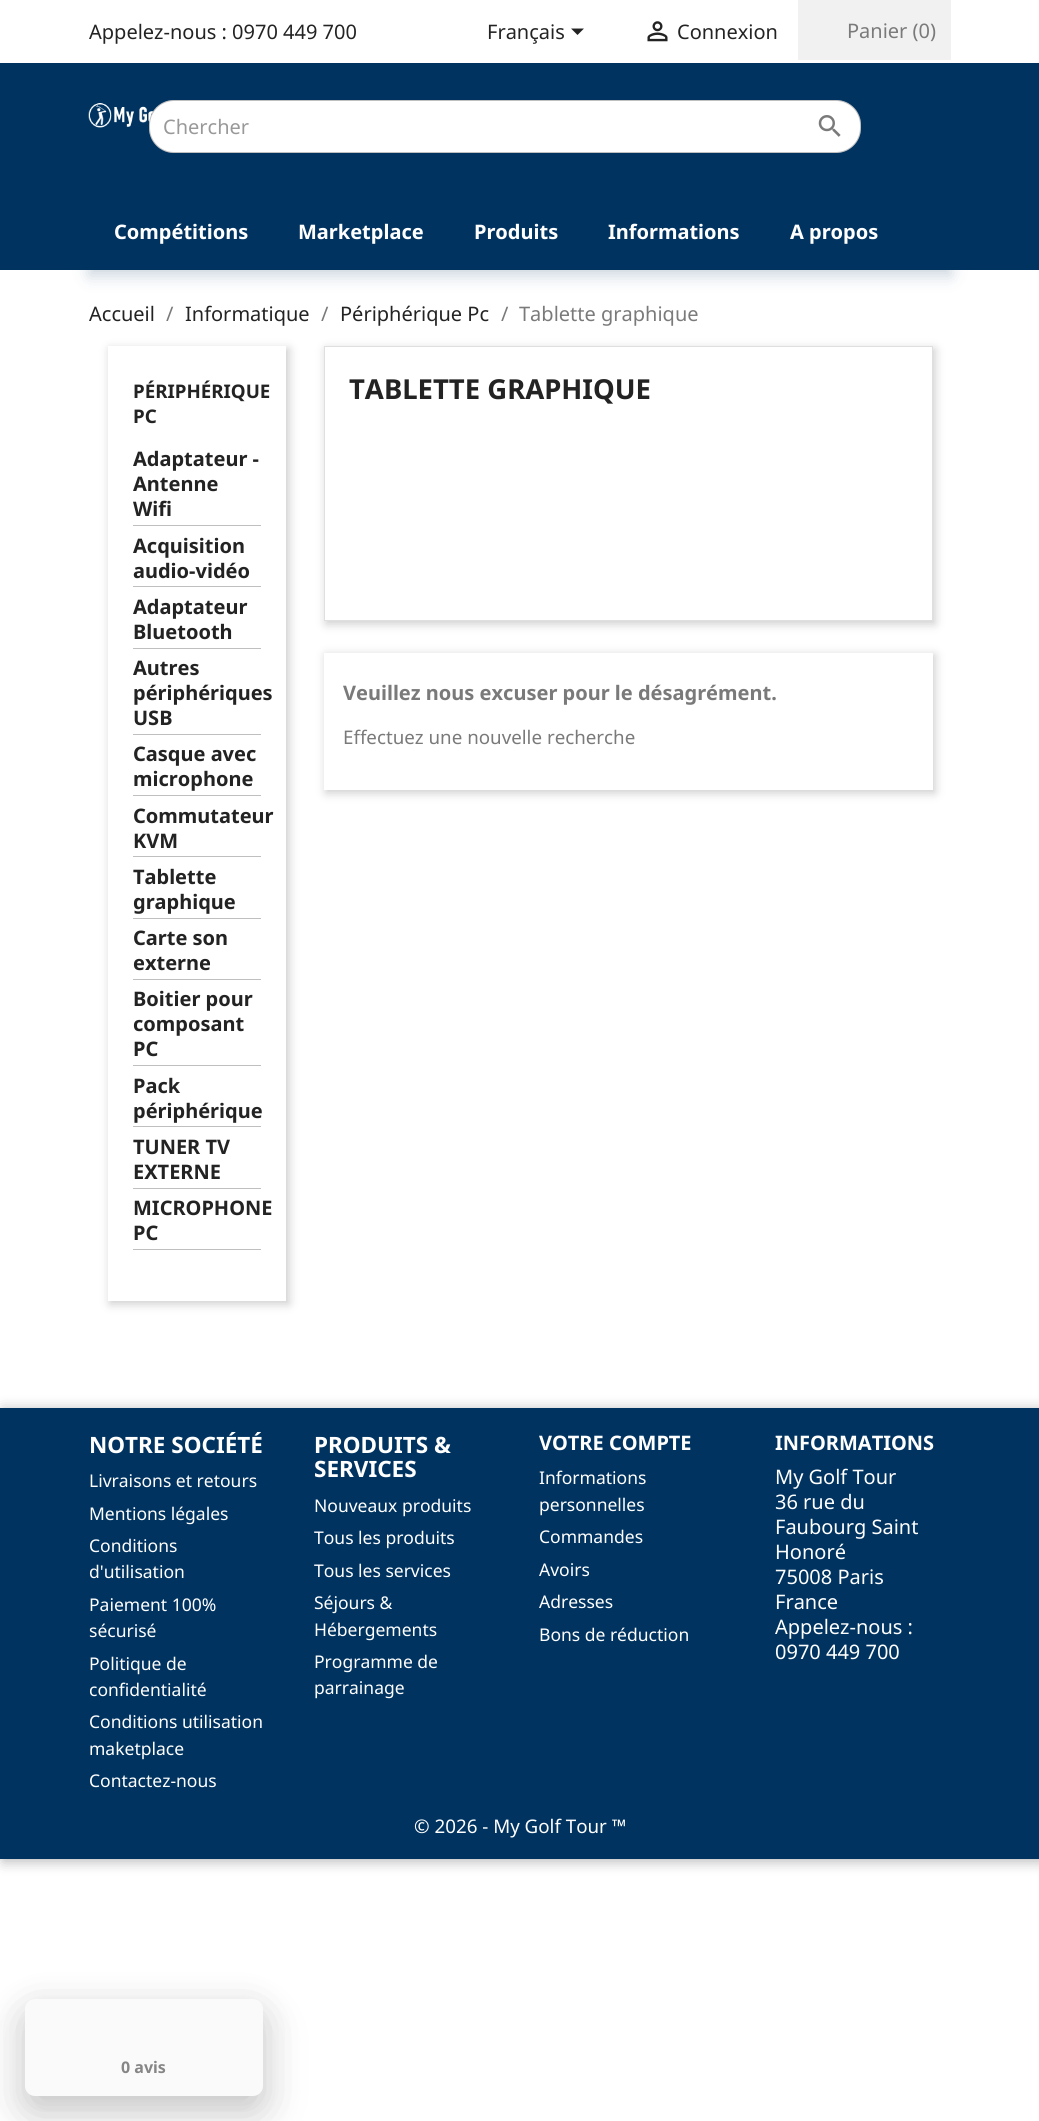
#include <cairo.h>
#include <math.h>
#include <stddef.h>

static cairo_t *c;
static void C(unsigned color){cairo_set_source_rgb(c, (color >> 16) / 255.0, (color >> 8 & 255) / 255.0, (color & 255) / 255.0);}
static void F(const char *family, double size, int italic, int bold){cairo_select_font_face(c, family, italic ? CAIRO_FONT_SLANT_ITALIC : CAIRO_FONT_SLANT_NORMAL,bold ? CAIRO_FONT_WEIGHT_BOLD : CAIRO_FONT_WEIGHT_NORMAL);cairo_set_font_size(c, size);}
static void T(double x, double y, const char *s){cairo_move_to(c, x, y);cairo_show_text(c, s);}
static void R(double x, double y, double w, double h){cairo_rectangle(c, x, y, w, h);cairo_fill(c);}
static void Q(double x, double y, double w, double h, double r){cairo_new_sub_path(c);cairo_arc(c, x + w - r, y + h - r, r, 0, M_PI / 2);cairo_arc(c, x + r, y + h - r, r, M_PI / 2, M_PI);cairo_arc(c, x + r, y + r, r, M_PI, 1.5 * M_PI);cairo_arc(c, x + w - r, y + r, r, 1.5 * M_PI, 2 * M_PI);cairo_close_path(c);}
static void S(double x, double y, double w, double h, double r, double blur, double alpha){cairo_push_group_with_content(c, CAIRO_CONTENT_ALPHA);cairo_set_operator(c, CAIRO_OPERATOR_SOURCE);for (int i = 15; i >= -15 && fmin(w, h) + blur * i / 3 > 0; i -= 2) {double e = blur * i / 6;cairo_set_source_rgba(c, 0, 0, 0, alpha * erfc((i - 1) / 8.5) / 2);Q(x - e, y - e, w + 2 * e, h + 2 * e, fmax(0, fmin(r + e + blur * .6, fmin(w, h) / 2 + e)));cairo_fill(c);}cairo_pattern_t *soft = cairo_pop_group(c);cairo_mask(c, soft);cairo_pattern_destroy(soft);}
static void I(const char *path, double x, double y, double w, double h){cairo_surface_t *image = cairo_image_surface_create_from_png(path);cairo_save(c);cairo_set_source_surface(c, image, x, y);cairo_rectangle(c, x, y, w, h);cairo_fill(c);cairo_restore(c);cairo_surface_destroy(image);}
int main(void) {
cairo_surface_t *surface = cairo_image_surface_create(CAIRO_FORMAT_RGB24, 1039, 2121);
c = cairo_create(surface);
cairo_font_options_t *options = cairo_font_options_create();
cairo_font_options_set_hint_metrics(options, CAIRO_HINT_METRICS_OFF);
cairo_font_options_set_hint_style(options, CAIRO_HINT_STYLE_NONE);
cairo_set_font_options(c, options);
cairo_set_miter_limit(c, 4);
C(0xffffff);
cairo_paint(c);
C(0x003360);
R(0,63,1039,207);
F("Noto Sans",20,0,0);
C(0x232323);
T(89,39,"Appelez-nous : 0970 449 700");
T(487,39,"Français");
cairo_new_path(c);
cairo_move_to(c,571,28.5);
cairo_line_to(c,584,28.5);
cairo_line_to(c,577.5,35);
cairo_close_path(c);
cairo_fill(c);
I("1.png",647,21,21,21);
T(677,39,"Connexion");
C(0xf1f1f1);
R(798,0,153,60);
C(0x7a7a7a);
T(847,38,"Panier (0)");
I("2.png",88,103,69,25);
C(0xffffff);
Q(149,100,712,53,25);
cairo_fill(c);
Q(149.5,100.5,711,52,24.5);
cairo_set_source_rgba(c,0,0,0,0.25);
cairo_set_line_width(c,1);
cairo_stroke(c);
C(0x999999);
T(163,134,"Chercher");
I("3.png",818,115,23,22);
cairo_save(c);
cairo_set_fill_rule(c,CAIRO_FILL_RULE_EVEN_ODD);
cairo_new_path(c);
cairo_move_to(c,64,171);
cairo_line_to(c,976,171);
cairo_line_to(c,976,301);
cairo_line_to(c,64,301);
cairo_close_path(c);
cairo_move_to(c,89,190);
cairo_line_to(c,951,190);
cairo_line_to(c,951,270);
cairo_line_to(c,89,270);
cairo_close_path(c);
cairo_clip(c);
C(0x003360);
S(89,196,862,80,0,8,.2);
cairo_restore(c);
F("Noto Sans",20,0,1);
C(0xffffff);
T(114,239,"Compétitions");
T(298,239,"Marketplace");
T(474,239,"Produits");
T(608,239,"Informations");
T(790,239,"A propos");
F("Noto Sans",20,0,0);
C(0x232323);
T(89,321,"Accueil");
C(0x7a7a7a);
T(166,321,"/");
C(0x232323);
T(185,321,"Informatique");
C(0x7a7a7a);
T(321,321,"/");
C(0x232323);
T(340,321,"Périphérique Pc");
C(0x7a7a7a);
T(501,321,"/");
T(519,321,"Tablette graphique");
C(0x000000);
S(110,349,179,955,0,5,.2);
C(0xffffff);
R(108,346,178,955);
F("Noto Sans",18.75,0,1);
C(0x232323);
T(133,398,"PÉRIPHÉRIQUE");
T(133,423,"PC");
C(0xbfbfbf);
R(133,525,128,1);
F("Noto Sans",20,0,1);
C(0x232323);
T(133,466,"Adaptateur -");
T(133,491,"Antenne");
T(133,516,"Wifi");
C(0xbfbfbf);
R(133,586,128,1);
C(0x232323);
T(133,553,"Acquisition");
T(133,578,"audio-vidéo");
C(0xbfbfbf);
R(133,648,128,1);
C(0x232323);
T(133,614,"Adaptateur");
T(133,639,"Bluetooth");
C(0xbfbfbf);
R(133,734,128,1);
C(0x232323);
T(133,675,"Autres");
T(133,700,"périphériques");
T(133,725,"USB");
C(0xbfbfbf);
R(133,795,128,1);
C(0x232323);
T(133,761,"Casque avec");
T(133,786,"microphone");
C(0xbfbfbf);
R(133,856,128,1);
C(0x232323);
T(133,823,"Commutateur");
T(133,848,"KVM");
C(0xbfbfbf);
R(133,918,128,1);
C(0x232323);
T(133,884,"Tablette");
T(133,909,"graphique");
C(0xbfbfbf);
R(133,979,128,1);
C(0x232323);
T(133,945,"Carte son");
T(133,970,"externe");
C(0xbfbfbf);
R(133,1065,128,1);
C(0x232323);
T(133,1006,"Boitier pour");
T(133,1031,"composant");
T(133,1056,"PC");
C(0xbfbfbf);
R(133,1126,128,1);
C(0x232323);
T(133,1093,"Pack");
T(133,1118,"périphérique");
C(0xbfbfbf);
R(133,1188,128,1);
C(0x232323);
T(133,1154,"TUNER TV");
T(133,1179,"EXTERNE");
C(0xbfbfbf);
R(133,1249,128,1);
C(0x232323);
T(133,1215,"MICROPHONE");
T(133,1240,"PC");
C(0x000000);
S(326,349,609,275,0,5,.2);
C(0xffffff);
cairo_rectangle(c,324.5,346.5,608,274);
cairo_fill_preserve(c);
C(0xdfdfdf);
cairo_stroke(c);
F("Noto Sans",27.5,0,1);
C(0x232323);
T(349,399,"TABLETTE GRAPHIQUE");
C(0x000000);
S(326,655,609,138,0,5,.2);
C(0xffffff);
R(324,653,609,137);
F("Noto Sans",20,0,1);
C(0x7a7a7a);
T(343,700,"Veuillez nous excuser pour le désagrément.");
F("Noto Sans",18.75,0,0);
T(343,744,"Effectuez une nouvelle recherche");
C(0x000000);
S(3,1410,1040,451,0,7,.3);
C(0x003360);
R(0,1408,1039,451);
F("Noto Sans",22.5,0,1);
C(0xffffff);
T(89,1453,"NOTRE SOCIÉTÉ");
F("Noto Sans",17.5,0,0);
T(89,1487,"Livraisons et retours");
T(89,1520,"Mentions légales");
T(89,1552,"Conditions");
T(89,1578,"d'utilisation");
T(89,1611,"Paiement 100%");
T(89,1637,"sécurisé");
T(89,1670,"Politique de");
T(89,1696,"confidentialité");
T(89,1728,"Conditions utilisation");
T(89,1755,"maketplace");
T(89,1787,"Contactez-nous");
F("Noto Sans",22.5,0,1);
T(314,1453,"PRODUITS &");
T(314,1477,"SERVICES");
F("Noto Sans",17.5,0,0);
T(314,1512,"Nouveaux produits");
T(314,1544,"Tous les produits");
T(314,1577,"Tous les services");
T(314,1609,"Séjours &");
T(314,1636,"Hébergements");
T(314,1668,"Programme de");
T(314,1694,"parrainage");
F("Noto Sans",20,0,1);
T(539,1450,"VOTRE COMPTE");
F("Noto Sans",17.5,0,0);
T(539,1484,"Informations");
T(539,1511,"personnelles");
T(539,1543,"Commandes");
T(539,1576,"Avoirs");
T(539,1608,"Adresses");
T(539,1641,"Bons de réduction");
F("Noto Sans",20,0,1);
T(775,1450,"INFORMATIONS");
F("Noto Sans",20,0,0);
T(775,1484,"My Golf Tour");
T(775,1509,"36 rue du");
T(775,1534,"Faubourg Saint");
T(775,1559,"Honoré");
T(775,1584,"75008 Paris");
T(775,1609,"France");
T(775,1634,"Appelez-nous :");
T(775,1659,"0970 449 700");
F("Noto Sans",18.75,0,0);
T(414,1833,"© 2026 - My Golf Tour ™");
C(0x000000);
S(25,2011,238,98,10,19,.15);
S(25,2018,238,97,10,25,.1);
C(0xfafafa);
Q(25,1999,238,97,10);
cairo_fill(c);
F("Noto Sans",16,0,1);
C(0x868686);
T(121,2073,"0 avis");
cairo_surface_write_to_png(surface, "o.png");
cairo_font_options_destroy(options);
cairo_destroy(c);
cairo_surface_destroy(surface);
return 0;
}
